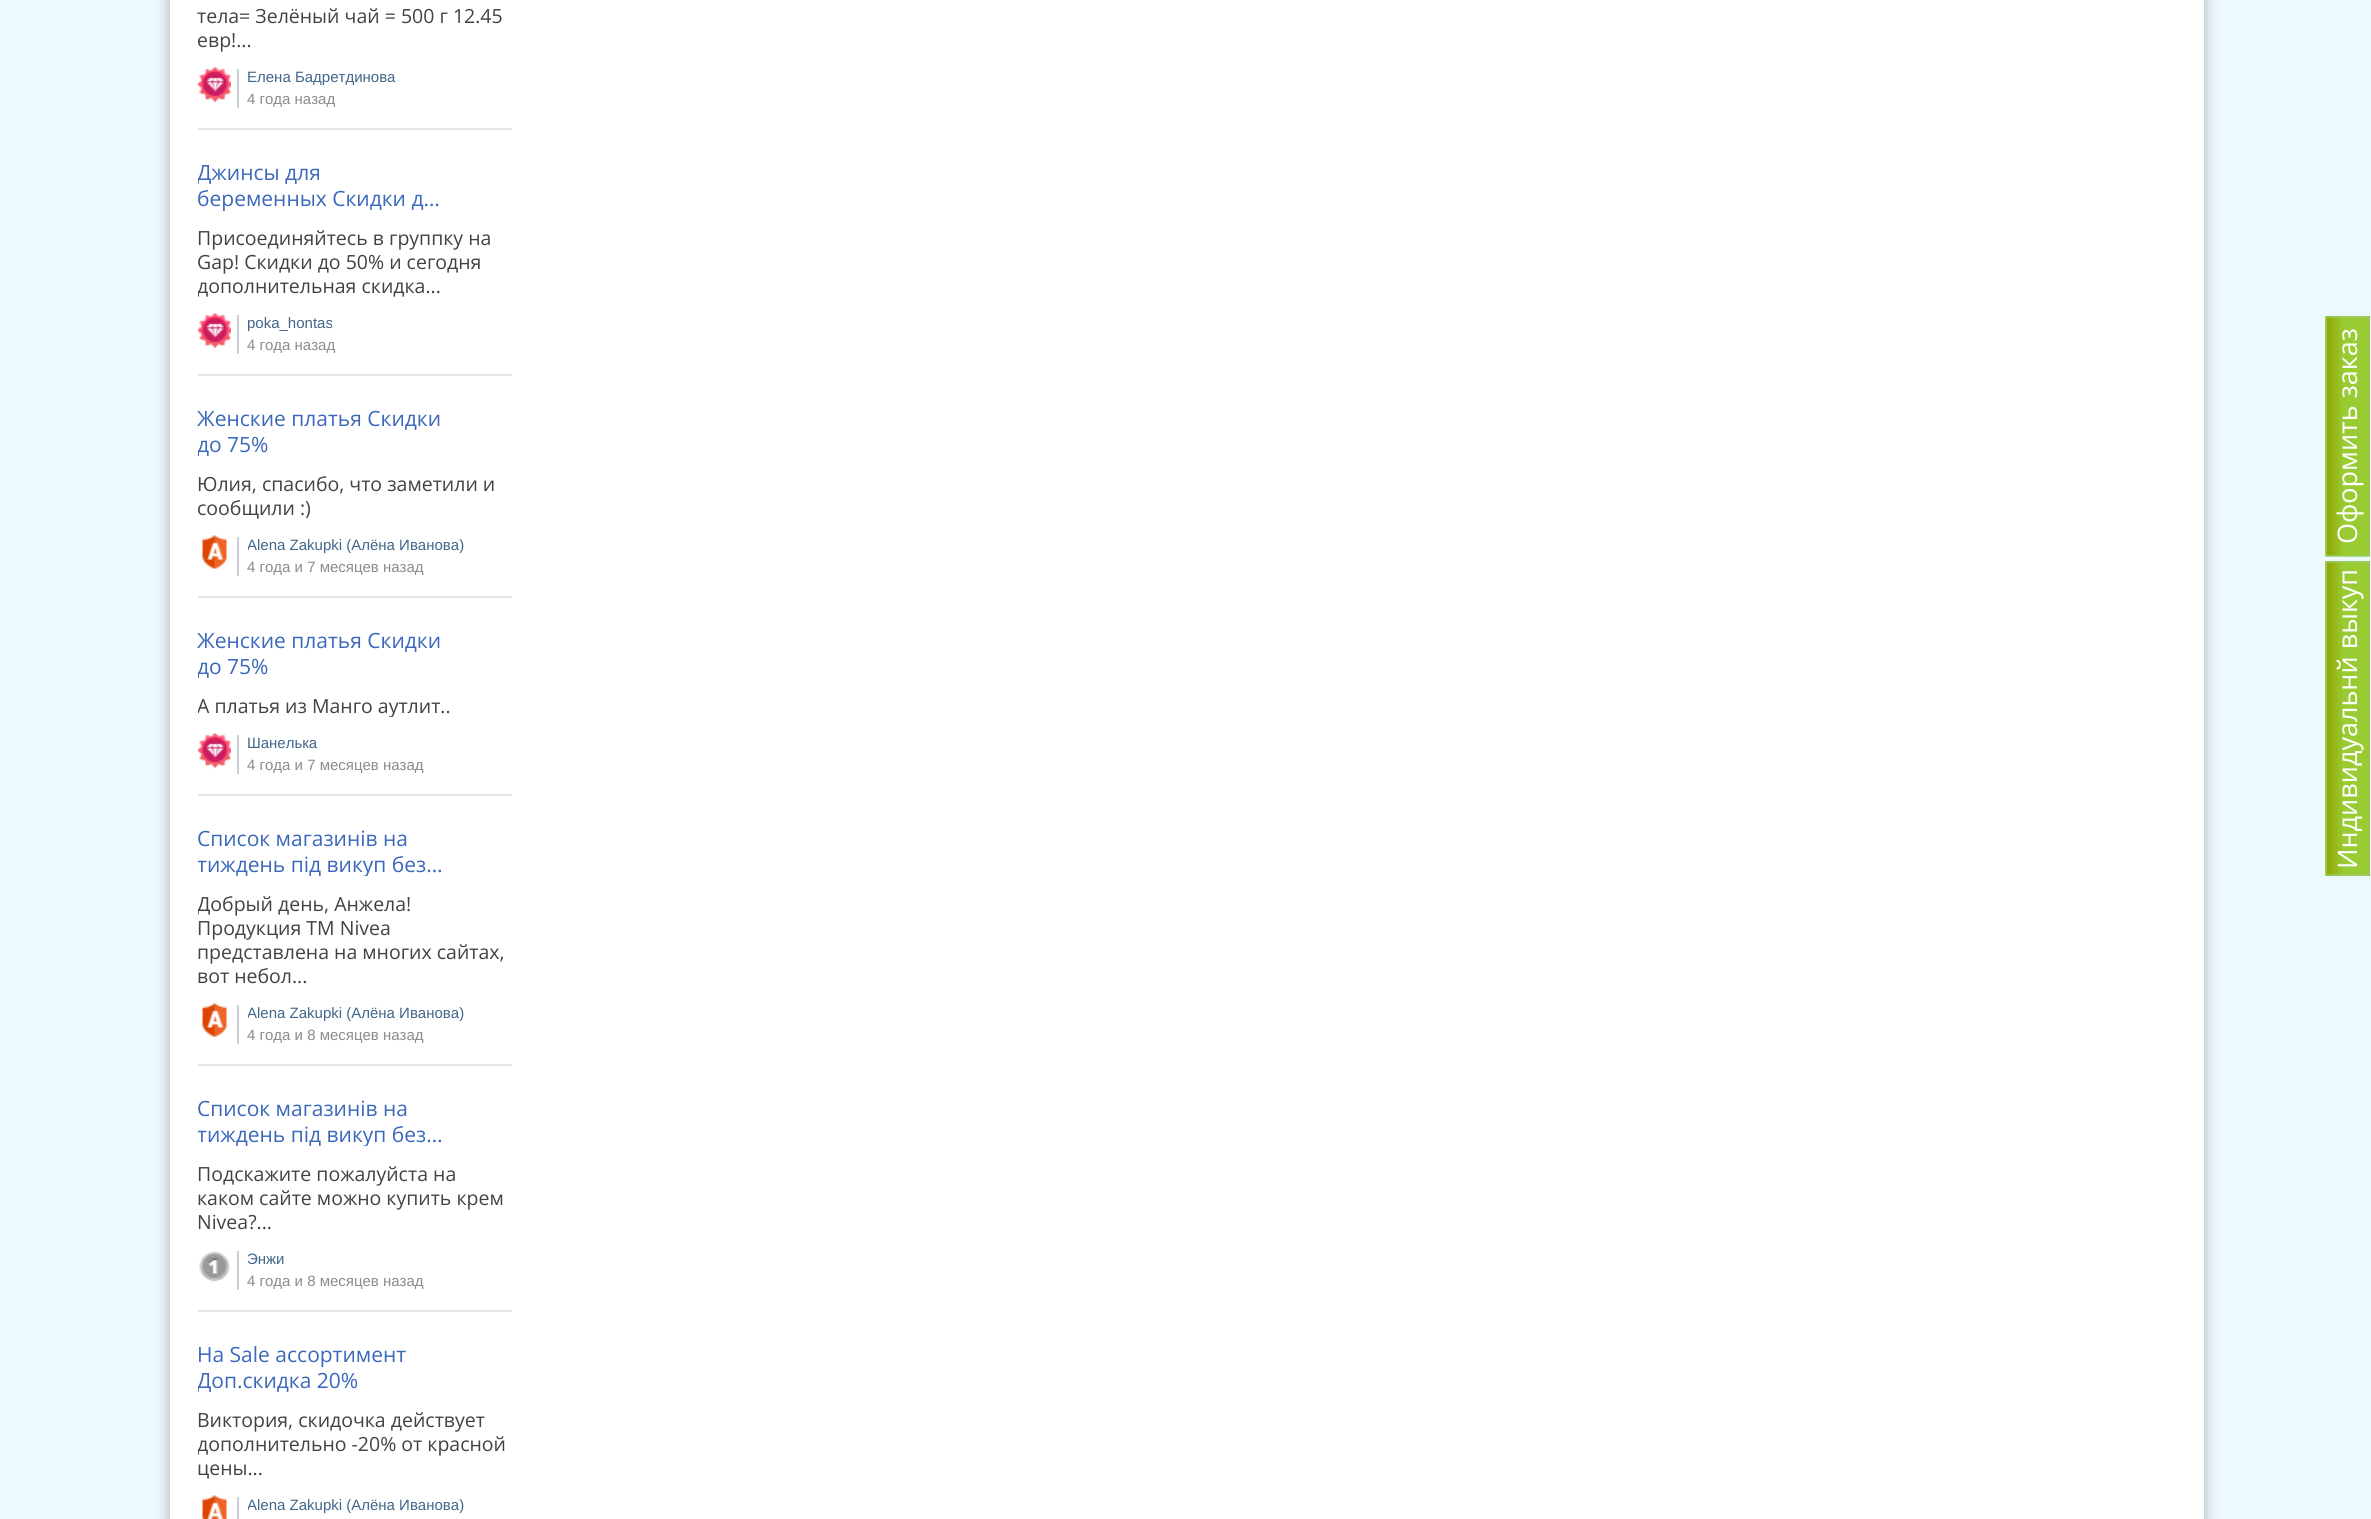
#include <cairo.h>
#include <math.h>
#include <stddef.h>

static cairo_t *c;
static void C(unsigned color){cairo_set_source_rgb(c, (color >> 16) / 255.0, (color >> 8 & 255) / 255.0, (color & 255) / 255.0);}
static void F(const char *family, double size, int italic, int bold){cairo_select_font_face(c, family, italic ? CAIRO_FONT_SLANT_ITALIC : CAIRO_FONT_SLANT_NORMAL,bold ? CAIRO_FONT_WEIGHT_BOLD : CAIRO_FONT_WEIGHT_NORMAL);cairo_set_font_size(c, size);}
static void T(double x, double y, const char *s){cairo_move_to(c, x, y);cairo_show_text(c, s);}
static void R(double x, double y, double w, double h){cairo_rectangle(c, x, y, w, h);cairo_fill(c);}
static void Q(double x, double y, double w, double h, double r){cairo_new_sub_path(c);cairo_arc(c, x + w - r, y + h - r, r, 0, M_PI / 2);cairo_arc(c, x + r, y + h - r, r, M_PI / 2, M_PI);cairo_arc(c, x + r, y + r, r, M_PI, 1.5 * M_PI);cairo_arc(c, x + w - r, y + r, r, 1.5 * M_PI, 2 * M_PI);cairo_close_path(c);}
static void S(double x, double y, double w, double h, double r, double blur, double alpha){cairo_push_group_with_content(c, CAIRO_CONTENT_ALPHA);cairo_set_operator(c, CAIRO_OPERATOR_SOURCE);for (int i = 15; i >= -15 && fmin(w, h) + blur * i / 3 > 0; i -= 2) {double e = blur * i / 6;cairo_set_source_rgba(c, 0, 0, 0, alpha * erfc((i - 1) / 8.5) / 2);Q(x - e, y - e, w + 2 * e, h + 2 * e, fmax(0, fmin(r + e + blur * .6, fmin(w, h) / 2 + e)));cairo_fill(c);}cairo_pattern_t *soft = cairo_pop_group(c);cairo_mask(c, soft);cairo_pattern_destroy(soft);}
static void I(const char *path, double x, double y, double w, double h){cairo_surface_t *image = cairo_image_surface_create_from_png(path);cairo_save(c);cairo_set_source_surface(c, image, x, y);cairo_rectangle(c, x, y, w, h);cairo_fill(c);cairo_restore(c);cairo_surface_destroy(image);}
int main(void) {
cairo_surface_t *surface = cairo_image_surface_create(CAIRO_FORMAT_RGB24, 2371, 1519);
c = cairo_create(surface);
cairo_font_options_t *options = cairo_font_options_create();
cairo_font_options_set_hint_metrics(options, CAIRO_HINT_METRICS_OFF);
cairo_font_options_set_hint_style(options, CAIRO_HINT_STYLE_NONE);
cairo_set_font_options(c, options);
cairo_set_miter_limit(c, 4);
cairo_pattern_t *gradient;
C(0xeef9fe);
cairo_paint(c);
C(0x000000);
S(170,-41,2034,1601,18,7.5,.3);
C(0xffffff);
R(170,0,2034,1519);
F("Open Sans",19.5,0,0);
C(0x424242);
T(197,23,"тела= Зелёный чай = 500 г 12.45");
T(197,47,"евр!...");
I("1.png",198,67,33,36);
C(0xcacfd3);
R(237,69,2,39);
F("Liberation Sans",15,0,0);
C(0x41658b);
T(247,82,"Елена Бадретдинова");
C(0x8b8b8b);
T(247,104,"4 года назад");
C(0xe5e5e5);
R(198,128,314,2);
cairo_save(c);
cairo_rectangle(c,198,159,248,51);
cairo_clip(c);
F("Open Sans",21,0,0);
C(0x3b68bb);
T(197,180,"Джинсы для");
cairo_restore(c);
F("Open Sans",21,0,0);
C(0x3b68bb);
T(197,206,"беременных Скидки д…");
F("Open Sans",19.5,0,0);
C(0x424242);
T(197,245,"Присоединяйтесь в группку на");
T(197,269,"Gap! Скидки до 50% и сегодня");
cairo_save(c);
cairo_rectangle(c,198,225,314,72);
cairo_clip(c);
T(197,293,"дополнительная скидка...");
cairo_restore(c);
I("1.png",198,313,33,36);
C(0xcacfd3);
R(237,315,2,39);
cairo_save(c);
cairo_rectangle(c,248,315,244,17);
cairo_clip(c);
F("Liberation Sans",15,0,0);
C(0x41658b);
T(247,328,"poka_hontas");
cairo_restore(c);
F("Liberation Sans",15,0,0);
C(0x8b8b8b);
T(247,350,"4 года назад");
C(0xe5e5e5);
R(198,374,314,2);
F("Open Sans",21,0,0);
C(0x3b68bb);
T(197,426,"Женские платья Скидки");
cairo_save(c);
cairo_rectangle(c,198,405,248,51);
cairo_clip(c);
T(197,452,"до");
cairo_restore(c);
T(227,452,"75%");
F("Open Sans",19.5,0,0);
C(0x424242);
T(197,491,"Юлия, спасибо, что заметили и");
T(197,515,"сообщили :)");
I("2.png",202,535,25,34);
C(0xcacfd3);
R(237,537,2,39);
cairo_save(c);
cairo_rectangle(c,248,537,244,17);
cairo_clip(c);
F("Liberation Sans",15,0,0);
C(0x41658b);
T(247,550,"Alena Zakupki (Алёна Иванова)");
cairo_restore(c);
F("Liberation Sans",15,0,0);
C(0x8b8b8b);
T(247,572,"4 года и 7 месяцев назад");
C(0xe5e5e5);
R(198,596,314,2);
F("Open Sans",21,0,0);
C(0x3b68bb);
T(197,648,"Женские платья Скидки");
cairo_save(c);
cairo_rectangle(c,198,627,248,51);
cairo_clip(c);
T(197,674,"до");
cairo_restore(c);
T(227,674,"75%");
cairo_save(c);
cairo_rectangle(c,198,693,314,24);
cairo_clip(c);
F("Open Sans",19.5,0,0);
C(0x424242);
T(197,713,"А платья из Манго аутлит..");
cairo_restore(c);
I("1.png",198,733,33,36);
C(0xcacfd3);
R(237,735,2,39);
F("Liberation Sans",15,0,0);
C(0x41658b);
T(247,748,"Шанелька");
C(0x8b8b8b);
T(247,770,"4 года и 7 месяцев назад");
C(0xe5e5e5);
R(198,794,314,2);
F("Open Sans",21,0,0);
C(0x3b68bb);
T(197,846,"Список магазинів на");
cairo_save(c);
cairo_rectangle(c,198,825,248,51);
cairo_clip(c);
T(197,872,"тиждень під викуп без…");
cairo_restore(c);
cairo_save(c);
cairo_rectangle(c,198,891,314,96);
cairo_clip(c);
F("Open Sans",19.5,0,0);
C(0x424242);
T(197,911,"Добрый день, Анжела!");
cairo_restore(c);
F("Open Sans",19.5,0,0);
C(0x424242);
T(197,935,"Продукция ТМ Nivea");
T(197,959,"представлена на многих сайтах,");
T(197,983,"вот небол...");
I("2.png",202,1003,25,34);
C(0xcacfd3);
R(237,1005,2,39);
cairo_save(c);
cairo_rectangle(c,248,1005,244,17);
cairo_clip(c);
F("Liberation Sans",15,0,0);
C(0x41658b);
T(247,1018,"Alena Zakupki (Алёна Иванова)");
cairo_restore(c);
F("Liberation Sans",15,0,0);
C(0x8b8b8b);
T(247,1040,"4 года и 8 месяцев назад");
C(0xe5e5e5);
R(198,1064,314,2);
F("Open Sans",21,0,0);
C(0x3b68bb);
T(197,1116,"Список магазинів на");
cairo_save(c);
cairo_rectangle(c,198,1095,248,51);
cairo_clip(c);
T(197,1142,"тиждень під викуп без…");
cairo_restore(c);
F("Open Sans",19.5,0,0);
C(0x424242);
T(197,1181,"Подскажите пожалуйста на");
T(197,1205,"каком сайте можно купить крем");
T(197,1229,"Nivea?...");
I("3.png",199,1251,31,31);
C(0xcacfd3);
R(237,1251,2,39);
F("Liberation Sans",15,0,0);
C(0x41658b);
T(247,1264,"Энжи");
C(0x8b8b8b);
T(247,1286,"4 года и 8 месяцев назад");
C(0xe5e5e5);
R(198,1310,314,2);
F("Open Sans",21,0,0);
C(0x3b68bb);
T(197,1362,"На Sale ассортимент");
cairo_save(c);
cairo_rectangle(c,198,1341,248,51);
cairo_clip(c);
T(197,1388,"Доп.скидка 20%");
cairo_restore(c);
F("Open Sans",19.5,0,0);
C(0x424242);
T(197,1427,"Виктория, скидочка действует");
cairo_save(c);
cairo_rectangle(c,198,1407,314,72);
cairo_clip(c);
T(197,1451,"дополнительно -20% от красной");
cairo_restore(c);
T(197,1475,"цены...");
I("4.png",202,1495,25,24);
C(0xcacfd3);
R(237,1497,2,22);
cairo_save(c);
cairo_rectangle(c,248,1497,244,17);
cairo_clip(c);
F("Liberation Sans",15,0,0);
C(0x41658b);
T(247,1510,"Alena Zakupki (Алёна Иванова)");
cairo_restore(c);
gradient = cairo_pattern_create_linear(2285,437,2327,437);
cairo_pattern_add_color_stop_rgba(gradient,0,0.58,0.647,0,1);
cairo_pattern_add_color_stop_rgba(gradient,.4,0.6,0.8,0.2,1);
cairo_set_source(c,gradient);
cairo_pattern_destroy(gradient);
R(2325,316,1,240);
gradient = cairo_pattern_create_linear(2327,437,2369,437);
cairo_pattern_add_color_stop_rgba(gradient,0,0.58,0.647,0,1);
cairo_pattern_add_color_stop_rgba(gradient,.4,0.6,0.8,0.2,1);
cairo_set_source(c,gradient);
cairo_pattern_destroy(gradient);
R(2326,316,42,240);
gradient = cairo_pattern_create_linear(2369,437,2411,437);
cairo_pattern_add_color_stop_rgba(gradient,0,0.58,0.647,0,1);
cairo_pattern_add_color_stop_rgba(gradient,.4,0.6,0.8,0.2,1);
cairo_set_source(c,gradient);
cairo_pattern_destroy(gradient);
R(2368,316,2,240);
cairo_new_path(c);
cairo_move_to(c,2326,556);
cairo_line_to(c,2326,317);
cairo_line_to(c,2369,317);
cairo_line_to(c,2369,556);
cairo_close_path(c);
C(0x99cc66);
cairo_set_line_width(c,1.5);
cairo_stroke(c);
F("Open Sans",27,0,0);
C(0xffffff);
cairo_save(c);
cairo_translate(c,2357,544);
cairo_rotate(c,-90 * M_PI / 180);
T(0,0,"Оформить заказ");
cairo_restore(c);
gradient = cairo_pattern_create_linear(2285,719,2327,719);
cairo_pattern_add_color_stop_rgba(gradient,0,0.58,0.647,0,1);
cairo_pattern_add_color_stop_rgba(gradient,.4,0.6,0.8,0.2,1);
cairo_set_source(c,gradient);
cairo_pattern_destroy(gradient);
R(2325,561,1,315);
gradient = cairo_pattern_create_linear(2327,719,2369,719);
cairo_pattern_add_color_stop_rgba(gradient,0,0.58,0.647,0,1);
cairo_pattern_add_color_stop_rgba(gradient,.4,0.6,0.8,0.2,1);
cairo_set_source(c,gradient);
cairo_pattern_destroy(gradient);
R(2326,561,42,315);
gradient = cairo_pattern_create_linear(2369,719,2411,719);
cairo_pattern_add_color_stop_rgba(gradient,0,0.58,0.647,0,1);
cairo_pattern_add_color_stop_rgba(gradient,.4,0.6,0.8,0.2,1);
cairo_set_source(c,gradient);
cairo_pattern_destroy(gradient);
R(2368,561,2,315);
cairo_new_path(c);
cairo_move_to(c,2326,875);
cairo_line_to(c,2326,562);
cairo_line_to(c,2369,562);
cairo_line_to(c,2369,875);
cairo_close_path(c);
C(0x99cc66);
cairo_stroke(c);
C(0xffffff);
cairo_save(c);
cairo_translate(c,2357,869);
cairo_rotate(c,-90 * M_PI / 180);
T(0,0,"Индивидуальнй выкуп");
cairo_restore(c);
cairo_surface_write_to_png(surface, "o.png");
cairo_font_options_destroy(options);
cairo_destroy(c);
cairo_surface_destroy(surface);
return 0;
}
